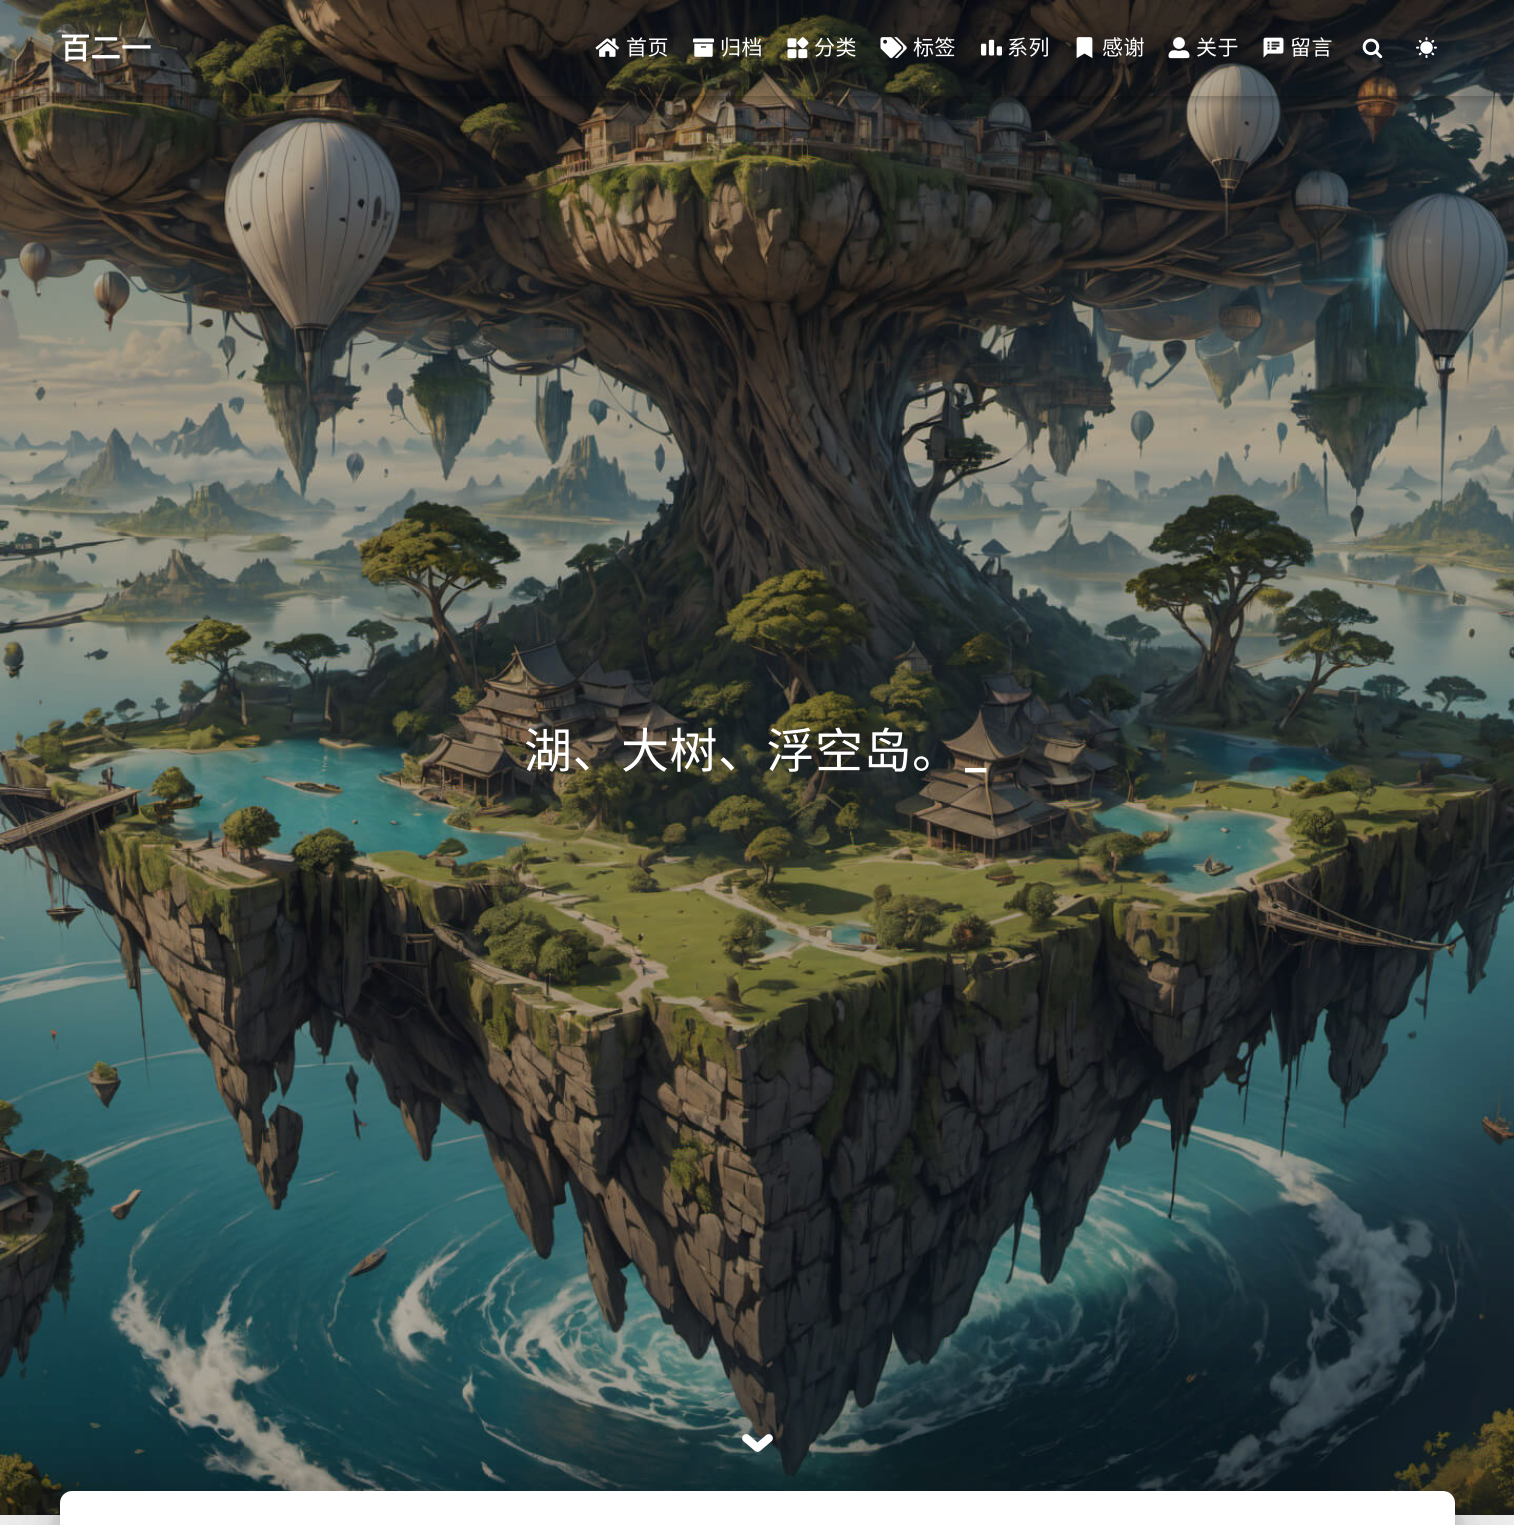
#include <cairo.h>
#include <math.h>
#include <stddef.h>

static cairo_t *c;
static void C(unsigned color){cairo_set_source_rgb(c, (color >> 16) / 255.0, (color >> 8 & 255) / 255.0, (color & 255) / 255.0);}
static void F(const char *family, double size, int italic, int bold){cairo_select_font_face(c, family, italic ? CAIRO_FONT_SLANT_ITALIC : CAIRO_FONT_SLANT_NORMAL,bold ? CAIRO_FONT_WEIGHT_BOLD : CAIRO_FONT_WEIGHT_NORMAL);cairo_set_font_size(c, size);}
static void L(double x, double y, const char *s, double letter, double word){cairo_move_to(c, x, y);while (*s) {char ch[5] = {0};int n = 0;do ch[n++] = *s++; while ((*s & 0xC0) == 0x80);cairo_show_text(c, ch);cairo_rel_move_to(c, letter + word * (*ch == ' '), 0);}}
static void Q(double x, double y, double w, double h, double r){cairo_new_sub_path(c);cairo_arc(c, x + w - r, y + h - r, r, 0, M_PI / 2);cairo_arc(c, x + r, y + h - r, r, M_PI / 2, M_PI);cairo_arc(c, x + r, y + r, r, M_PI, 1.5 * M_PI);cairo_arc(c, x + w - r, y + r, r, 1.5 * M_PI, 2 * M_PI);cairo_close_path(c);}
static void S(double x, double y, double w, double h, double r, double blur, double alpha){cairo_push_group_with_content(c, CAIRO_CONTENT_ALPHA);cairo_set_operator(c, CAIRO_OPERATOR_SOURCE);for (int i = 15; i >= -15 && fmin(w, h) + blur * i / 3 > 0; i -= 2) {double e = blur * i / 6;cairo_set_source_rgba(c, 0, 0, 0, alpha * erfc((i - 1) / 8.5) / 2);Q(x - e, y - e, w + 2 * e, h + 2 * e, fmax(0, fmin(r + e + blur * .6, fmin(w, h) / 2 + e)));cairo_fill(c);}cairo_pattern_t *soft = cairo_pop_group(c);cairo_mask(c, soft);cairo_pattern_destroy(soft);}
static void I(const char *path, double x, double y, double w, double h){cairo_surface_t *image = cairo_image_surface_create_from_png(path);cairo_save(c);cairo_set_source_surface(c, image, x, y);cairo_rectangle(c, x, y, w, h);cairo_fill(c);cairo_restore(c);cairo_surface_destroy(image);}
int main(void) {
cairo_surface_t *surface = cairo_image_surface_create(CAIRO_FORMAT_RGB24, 1514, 1525);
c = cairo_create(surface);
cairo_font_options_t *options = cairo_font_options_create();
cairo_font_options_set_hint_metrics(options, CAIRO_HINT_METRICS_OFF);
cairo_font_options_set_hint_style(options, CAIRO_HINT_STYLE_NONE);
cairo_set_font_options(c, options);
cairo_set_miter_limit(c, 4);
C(0xeeeeee);
cairo_paint(c);
I("11.png",0,0,1514,1515);
cairo_save(c);
cairo_rectangle(c,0,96,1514,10);
cairo_clip(c);
C(0x000000);
S(0,3,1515,96,0,7.5,.12);
cairo_restore(c);
cairo_save(c);
cairo_rectangle(c,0,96,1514,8);
cairo_clip(c);
C(0x000000);
S(0,3,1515,96,0,4,.16);
cairo_restore(c);
F("Noto Sans CJK SC",30,0,1);
C(0xffffff);
L(60,59,"百二一",.5,0);
I("1.png",595,38,25,19);
F("Noto Sans CJK SC",21,0,0);
L(626,55,"首页",.5,0);
I("2.png",693,38,21,19);
L(720,55,"归档",.5,0);
I("3.png",787,37,22,22);
L(814,55,"分类",.5,0);
I("4.png",880,37,27,22);
L(913,55,"标签",.5,0);
I("5.png",981,39,21,17);
L(1007,55,"系列",.5,0);
I("6.png",1076,37,17,21);
L(1102,55,"感谢",.5,0);
I("7.png",1168,37,22,22);
L(1196,55,"关于",.5,0);
I("8.png",1263,37,21,21);
L(1290,55,"留言",.5,0);
I("9.png",1362,38,21,21);
I("10.png",1416,37,21,22);
F("Noto Sans CJK SC",48,0,0);
L(524,768,"湖、大树、浮空岛。",.5,0);
F("Roboto Medium",48,0,0);
L(965,768,"_",.5,0);
I("12.png",742,1434,31,18);
C(0x000000);
S(60,1517,1395,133,12,37.5,.19);
S(60,1509,1395,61,12,11,.24);
C(0xffffff);
Q(60,1491,1395,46,12);
cairo_fill(c);
cairo_surface_write_to_png(surface, "o.png");
cairo_font_options_destroy(options);
cairo_destroy(c);
cairo_surface_destroy(surface);
return 0;
}
